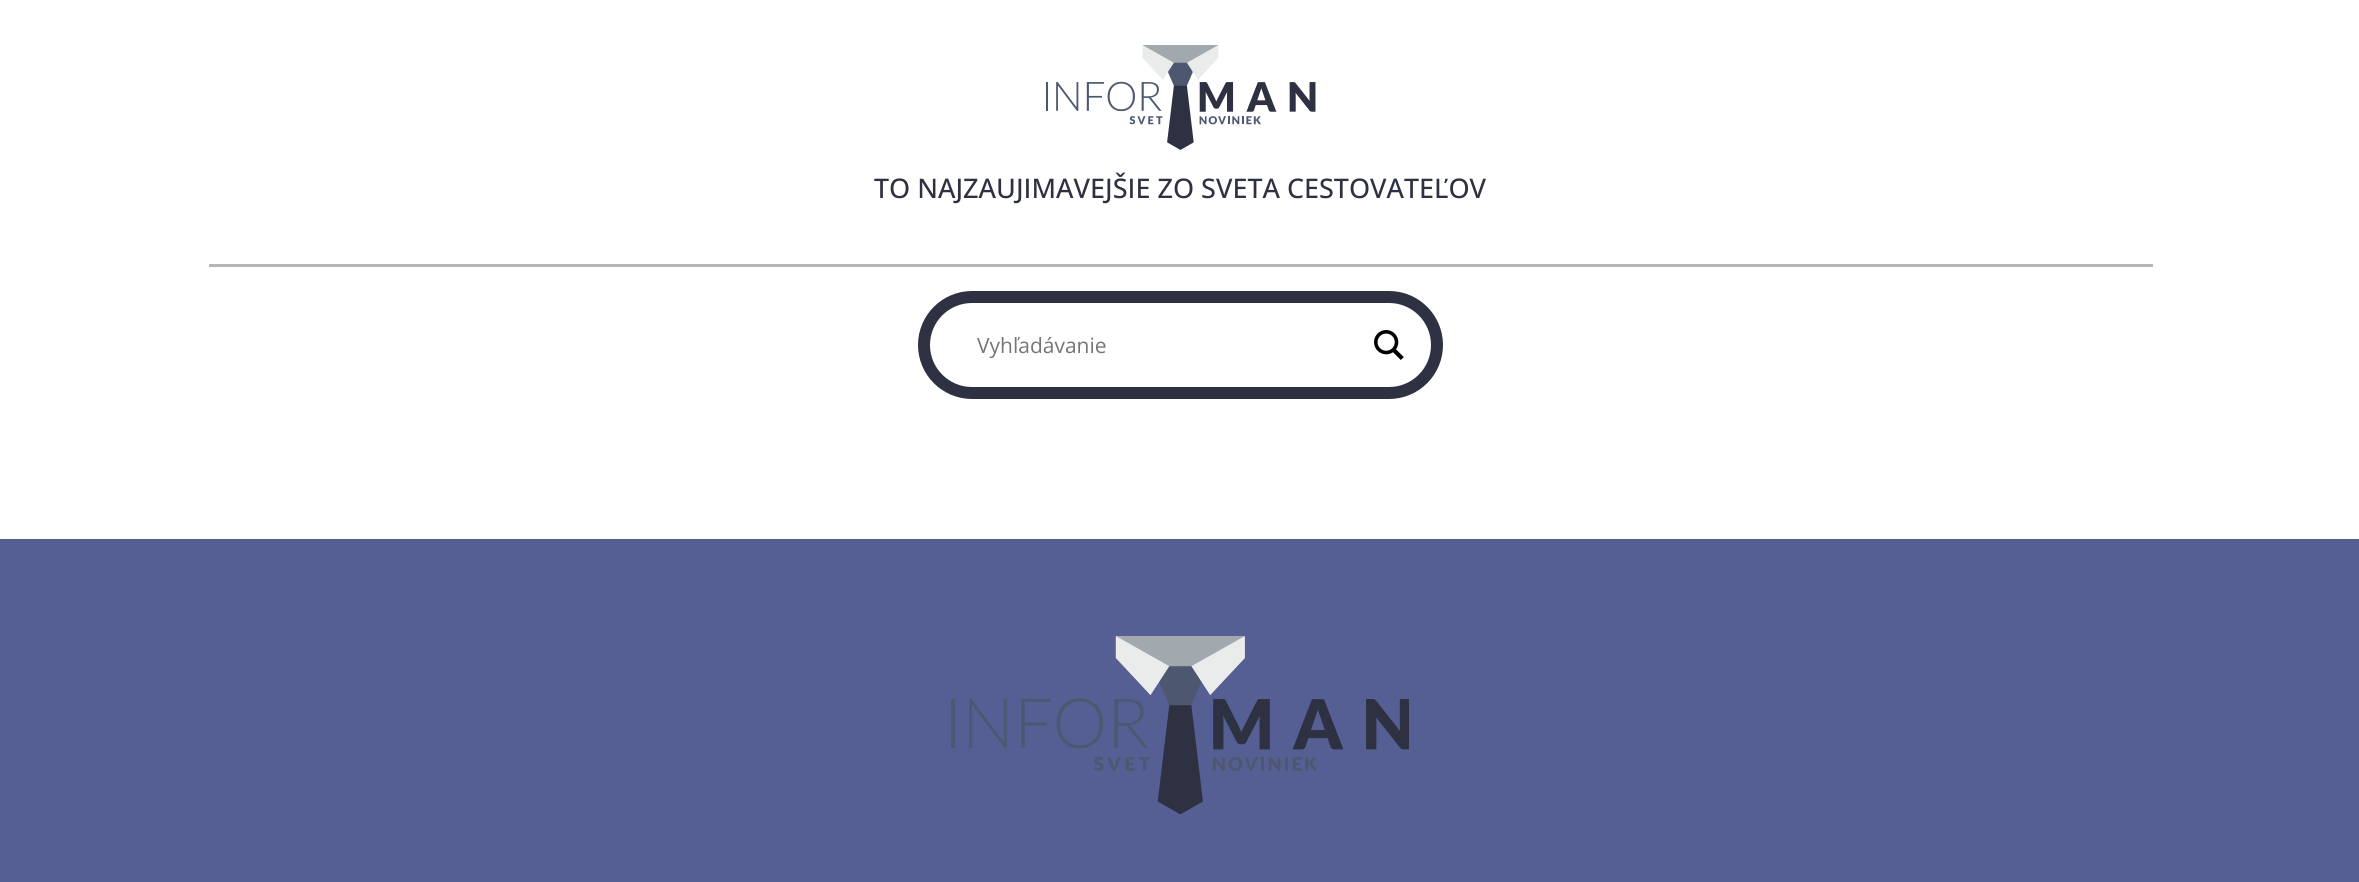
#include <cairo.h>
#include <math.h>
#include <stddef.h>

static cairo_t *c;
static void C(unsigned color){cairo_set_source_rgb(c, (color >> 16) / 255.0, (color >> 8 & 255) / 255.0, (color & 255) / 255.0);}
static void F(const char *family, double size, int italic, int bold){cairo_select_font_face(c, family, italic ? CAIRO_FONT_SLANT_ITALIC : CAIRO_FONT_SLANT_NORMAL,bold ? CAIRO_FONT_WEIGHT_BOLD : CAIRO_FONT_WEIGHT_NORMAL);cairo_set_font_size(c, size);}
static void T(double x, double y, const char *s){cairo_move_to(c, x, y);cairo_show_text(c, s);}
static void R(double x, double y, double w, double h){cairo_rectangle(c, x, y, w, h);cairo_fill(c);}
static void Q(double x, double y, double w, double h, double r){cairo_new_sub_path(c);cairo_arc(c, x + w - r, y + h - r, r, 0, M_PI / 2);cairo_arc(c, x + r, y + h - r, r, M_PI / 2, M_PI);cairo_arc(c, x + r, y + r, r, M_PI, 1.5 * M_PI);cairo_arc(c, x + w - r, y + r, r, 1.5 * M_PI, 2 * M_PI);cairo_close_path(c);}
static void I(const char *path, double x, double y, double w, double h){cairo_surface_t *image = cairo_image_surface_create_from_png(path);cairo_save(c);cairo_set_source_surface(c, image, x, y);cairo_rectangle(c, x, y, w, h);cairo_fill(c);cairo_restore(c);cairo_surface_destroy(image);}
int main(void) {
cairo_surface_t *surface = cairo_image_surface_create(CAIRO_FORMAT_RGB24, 2359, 882);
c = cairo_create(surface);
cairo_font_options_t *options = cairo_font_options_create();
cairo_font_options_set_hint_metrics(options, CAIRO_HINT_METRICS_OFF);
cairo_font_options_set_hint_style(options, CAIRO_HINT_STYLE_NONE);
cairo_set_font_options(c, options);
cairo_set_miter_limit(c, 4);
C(0xffffff);
cairo_paint(c);
I("1.png",1046,45,270,105);
F("Open Sans Medium",27,0,0);
C(0x2e3141);
T(874,198,"TO NAJZAUJIMAVEJŠIE ZO SVETA CESTOVATEĽOV");
C(0xb6b6b6);
R(209,264,1944,3);
Q(924,297,513,96,48);
C(0x2e3141);
cairo_set_line_width(c,12);
cairo_stroke(c);
F("Open Sans",21,0,0);
C(0x757575);
T(977,353,"Vyhľadávanie");
I("2.png",1374,330,30,30);
C(0x555f94);
R(0,539,2359,343);
I("3.png",951,636,458,179);
cairo_surface_write_to_png(surface, "o.png");
cairo_font_options_destroy(options);
cairo_destroy(c);
cairo_surface_destroy(surface);
return 0;
}
